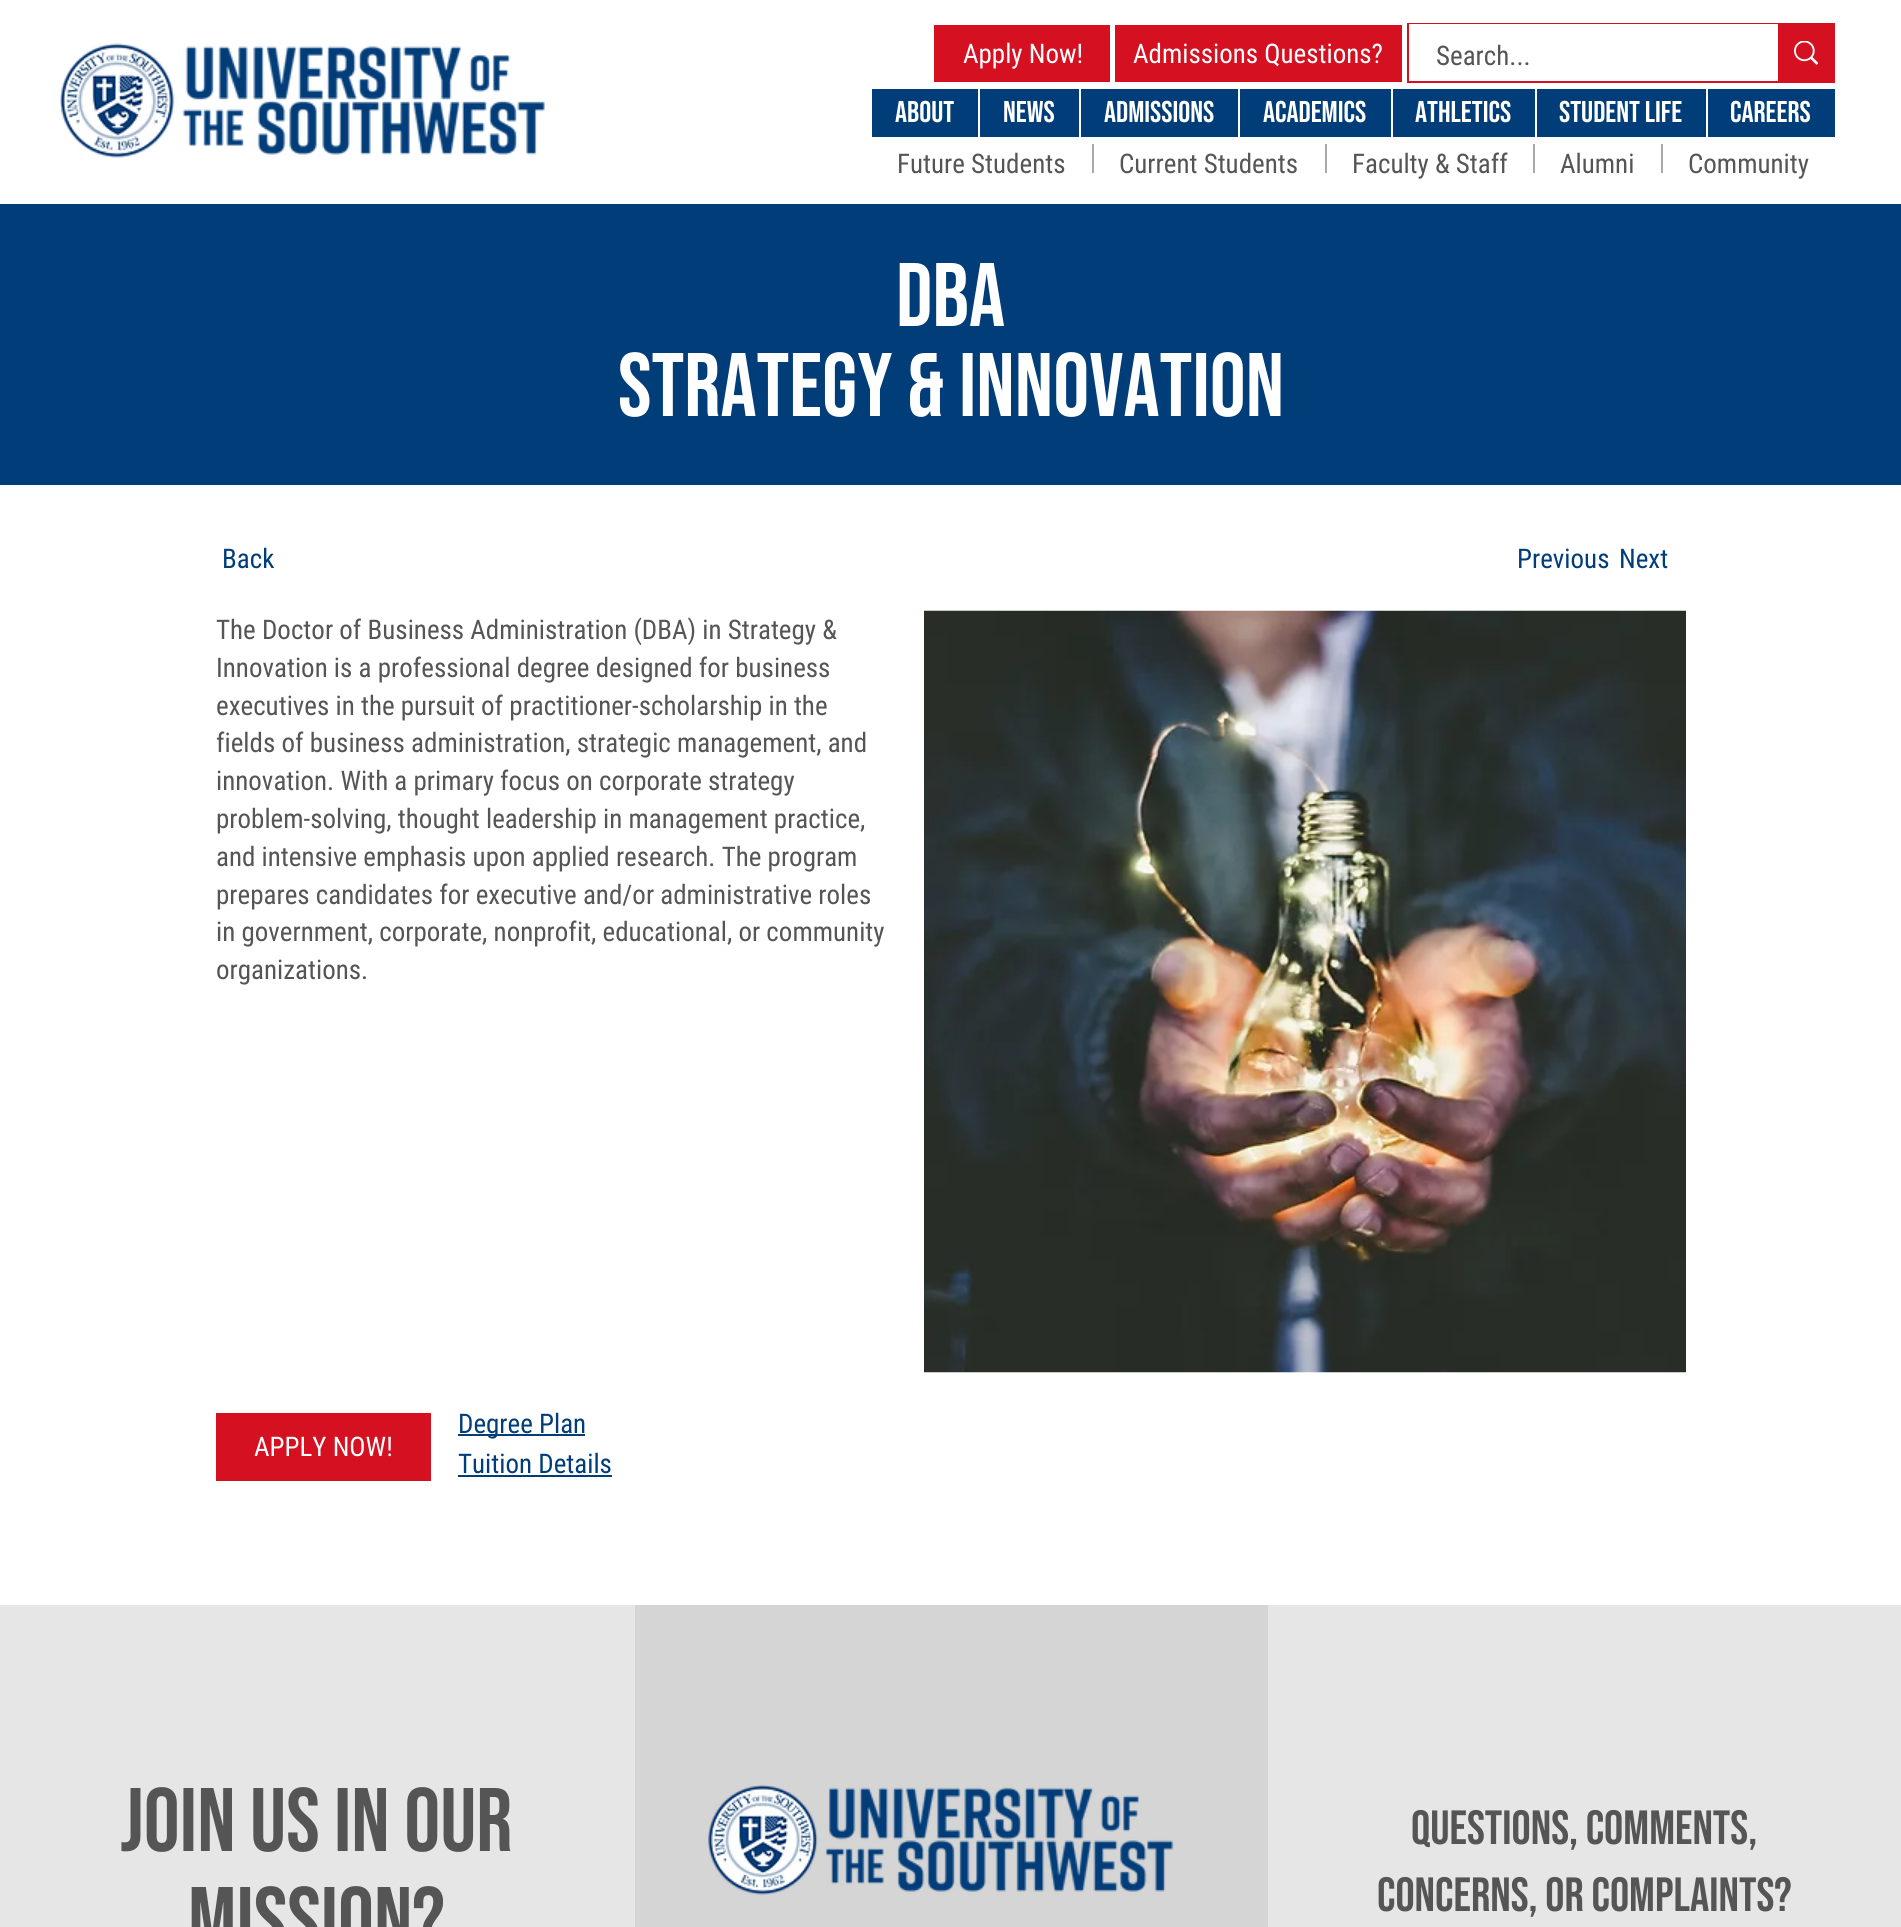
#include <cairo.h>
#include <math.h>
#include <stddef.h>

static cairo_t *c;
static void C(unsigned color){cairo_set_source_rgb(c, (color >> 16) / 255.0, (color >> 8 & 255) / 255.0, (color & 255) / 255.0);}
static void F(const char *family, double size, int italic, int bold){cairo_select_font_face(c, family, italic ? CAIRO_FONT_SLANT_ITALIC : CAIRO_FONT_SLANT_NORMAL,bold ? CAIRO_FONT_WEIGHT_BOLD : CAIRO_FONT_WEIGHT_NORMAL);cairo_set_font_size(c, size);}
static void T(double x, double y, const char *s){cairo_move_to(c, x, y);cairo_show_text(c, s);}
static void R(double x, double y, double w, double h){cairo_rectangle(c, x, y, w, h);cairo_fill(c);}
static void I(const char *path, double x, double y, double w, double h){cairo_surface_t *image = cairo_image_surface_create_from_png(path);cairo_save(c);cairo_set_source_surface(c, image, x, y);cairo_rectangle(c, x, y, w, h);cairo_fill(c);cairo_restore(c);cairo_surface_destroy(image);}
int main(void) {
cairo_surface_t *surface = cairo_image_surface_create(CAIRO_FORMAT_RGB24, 1901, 1927);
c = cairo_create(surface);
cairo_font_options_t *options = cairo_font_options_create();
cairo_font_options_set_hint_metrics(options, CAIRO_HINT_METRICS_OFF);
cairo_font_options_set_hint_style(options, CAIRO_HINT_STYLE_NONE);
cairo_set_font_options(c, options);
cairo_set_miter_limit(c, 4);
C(0xffffff);
cairo_paint(c);
I("1.png",60,43,485,115);
C(0xd51021);
R(934,25,176,57);
F("Roboto Condensed",27,0,0);
C(0xffffff);
T(963,63,"Apply Now!");
C(0xd51021);
R(1115,25,287,57);
C(0xffffff);
T(1133,63,"Admissions Questions?");
cairo_rectangle(c,1408,24,426,58);
C(0xd51021);
cairo_stroke(c);
C(0xffffff);
R(1409,24,369,1);
C(0x555555);
T(1436,65,"Search...");
C(0xd51021);
R(1778,25,55,56);
I("2.png",1794,41,24,24);
C(0x003d79);
R(872,89,963,48);
F("Bebas Neue",30,0,0);
C(0xffffff);
T(895,122,"ABOUT");
R(978,89,2,48);
T(1003,122,"NEWS");
R(1079,89,2,48);
T(1104,122,"ADMISSIONS");
R(1238,89,2,48);
T(1263,122,"ACADEMICS");
R(1391,89,2,48);
T(1415,122,"Athletics");
R(1535,89,2,48);
T(1559,122,"STUDENT LIFE");
R(1706,89,2,48);
T(1730,122,"CAREERS");
F("Roboto Condensed",27,0,0);
C(0x555555);
T(897,173,"Future Students");
C(0xaaaaaa);
R(1092,144,2,29);
C(0x555555);
T(1119,173,"Current Students");
C(0xaaaaaa);
R(1325,144,2,29);
C(0x555555);
T(1352,173,"Faculty & Staff");
C(0xaaaaaa);
R(1533,144,2,29);
C(0x555555);
T(1560,173,"Alumni");
C(0xaaaaaa);
R(1661,144,2,29);
C(0x555555);
T(1688,173,"Community");
C(0x003d79);
R(0,204,1901,281);
F("Bebas Neue",90,0,0);
C(0xffffff);
T(896,326,"DBA");
T(618,416,"Strategy & Innovation");
F("Roboto Condensed",27,0,0);
C(0x003d79);
T(222,568,"Back");
T(1517,568,"Previous");
T(1619,568,"Next");
C(0x555555);
T(216,639,"The Doctor of Business Administration (DBA) in Strategy &");
T(216,677,"Innovation is a professional degree designed for business");
T(216,715,"executives in the pursuit of practitioner-scholarship in the");
T(216,752,"fields of business administration, strategic management, and");
T(216,790,"innovation. With a primary focus on corporate strategy");
T(216,828,"problem-solving, thought leadership in management practice,");
T(216,866,"and intensive emphasis upon applied research. The program");
T(216,904,"prepares candidates for executive and/or administrative roles");
T(216,941,"in government, corporate, nonprofit, educational, or community");
T(216,979,"organizations.");
I("3.png",924,610,762,763);
C(0x003d79);
R(458,1434,127,2);
T(458,1433,"Degree Plan");
C(0xd51021);
R(216,1413,215,68);
C(0xffffff);
T(254,1456,"APPLY NOW!");
C(0x003d79);
T(458,1473,"Tuition Details");
R(458,1475,154,2);
C(0xe6e6e6);
R(0,1605,635,322);
F("Bebas Neue",90,0,0);
C(0x555555);
T(120,1851,"Join us in our");
T(188,1950,"mission?");
C(0xd5d5d5);
R(635,1605,633,322);
I("4.png",708,1785,466,110);
C(0xe6e6e6);
R(1268,1605,633,322);
F("Bebas Neue",48,0,0);
C(0x555555);
T(1411,1844,"Questions, Comments,");
T(1377,1911,"Concerns, or Complaints?");
cairo_surface_write_to_png(surface, "o.png");
cairo_font_options_destroy(options);
cairo_destroy(c);
cairo_surface_destroy(surface);
return 0;
}
